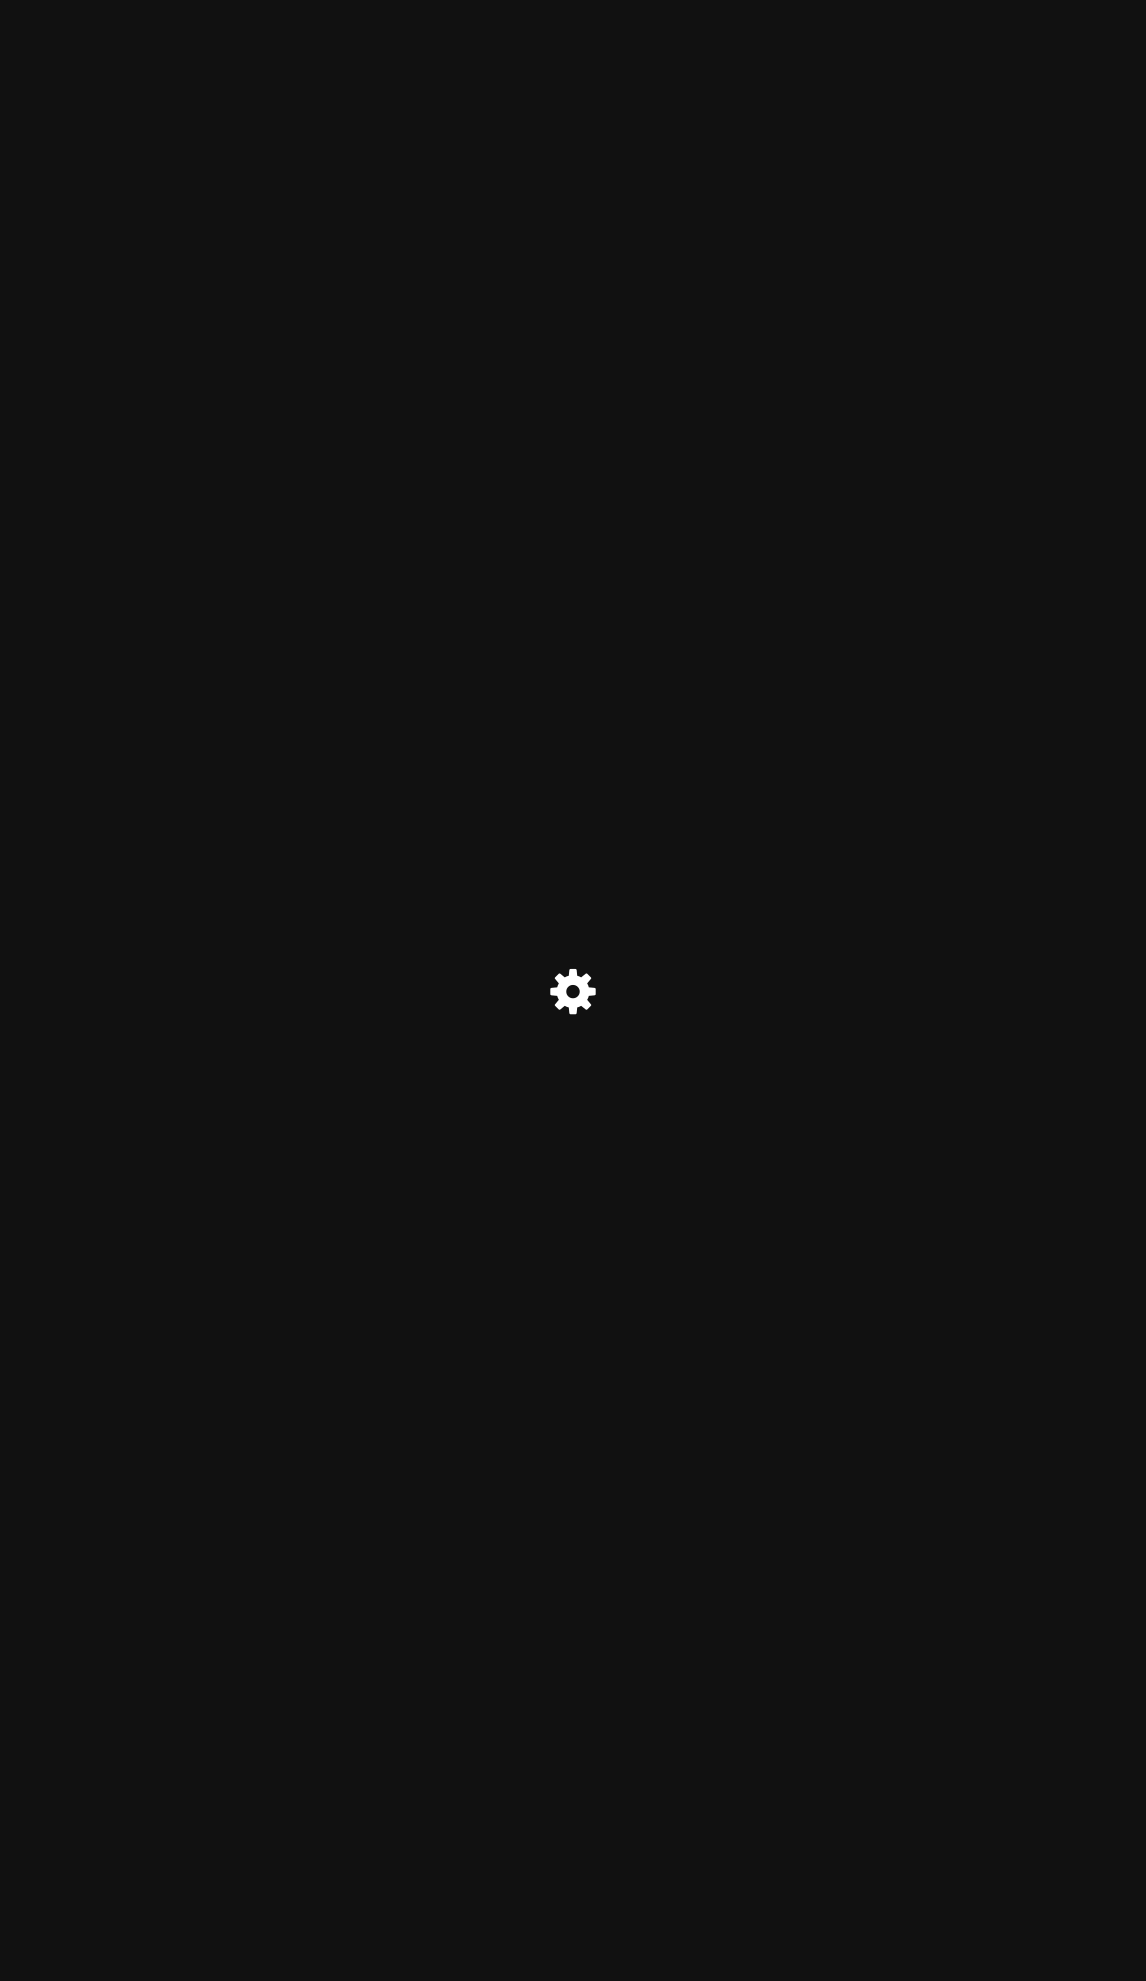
#include <cairo.h>
#include <math.h>
#include <stddef.h>

static cairo_t *c;
static void C(unsigned color){cairo_set_source_rgb(c, (color >> 16) / 255.0, (color >> 8 & 255) / 255.0, (color & 255) / 255.0);}
static void I(const char *path, double x, double y, double w, double h){cairo_surface_t *image = cairo_image_surface_create_from_png(path);cairo_save(c);cairo_set_source_surface(c, image, x, y);cairo_rectangle(c, x, y, w, h);cairo_fill(c);cairo_restore(c);cairo_surface_destroy(image);}
int main(void) {
cairo_surface_t *surface = cairo_image_surface_create(CAIRO_FORMAT_RGB24, 1146, 1981);
c = cairo_create(surface);
cairo_font_options_t *options = cairo_font_options_create();
cairo_font_options_set_hint_metrics(options, CAIRO_HINT_METRICS_OFF);
cairo_font_options_set_hint_style(options, CAIRO_HINT_STYLE_NONE);
cairo_set_font_options(c, options);
cairo_set_miter_limit(c, 4);
C(0x111111);
cairo_paint(c);
I("1.png",550,968,46,47);
cairo_surface_write_to_png(surface, "o.png");
cairo_font_options_destroy(options);
cairo_destroy(c);
cairo_surface_destroy(surface);
return 0;
}
